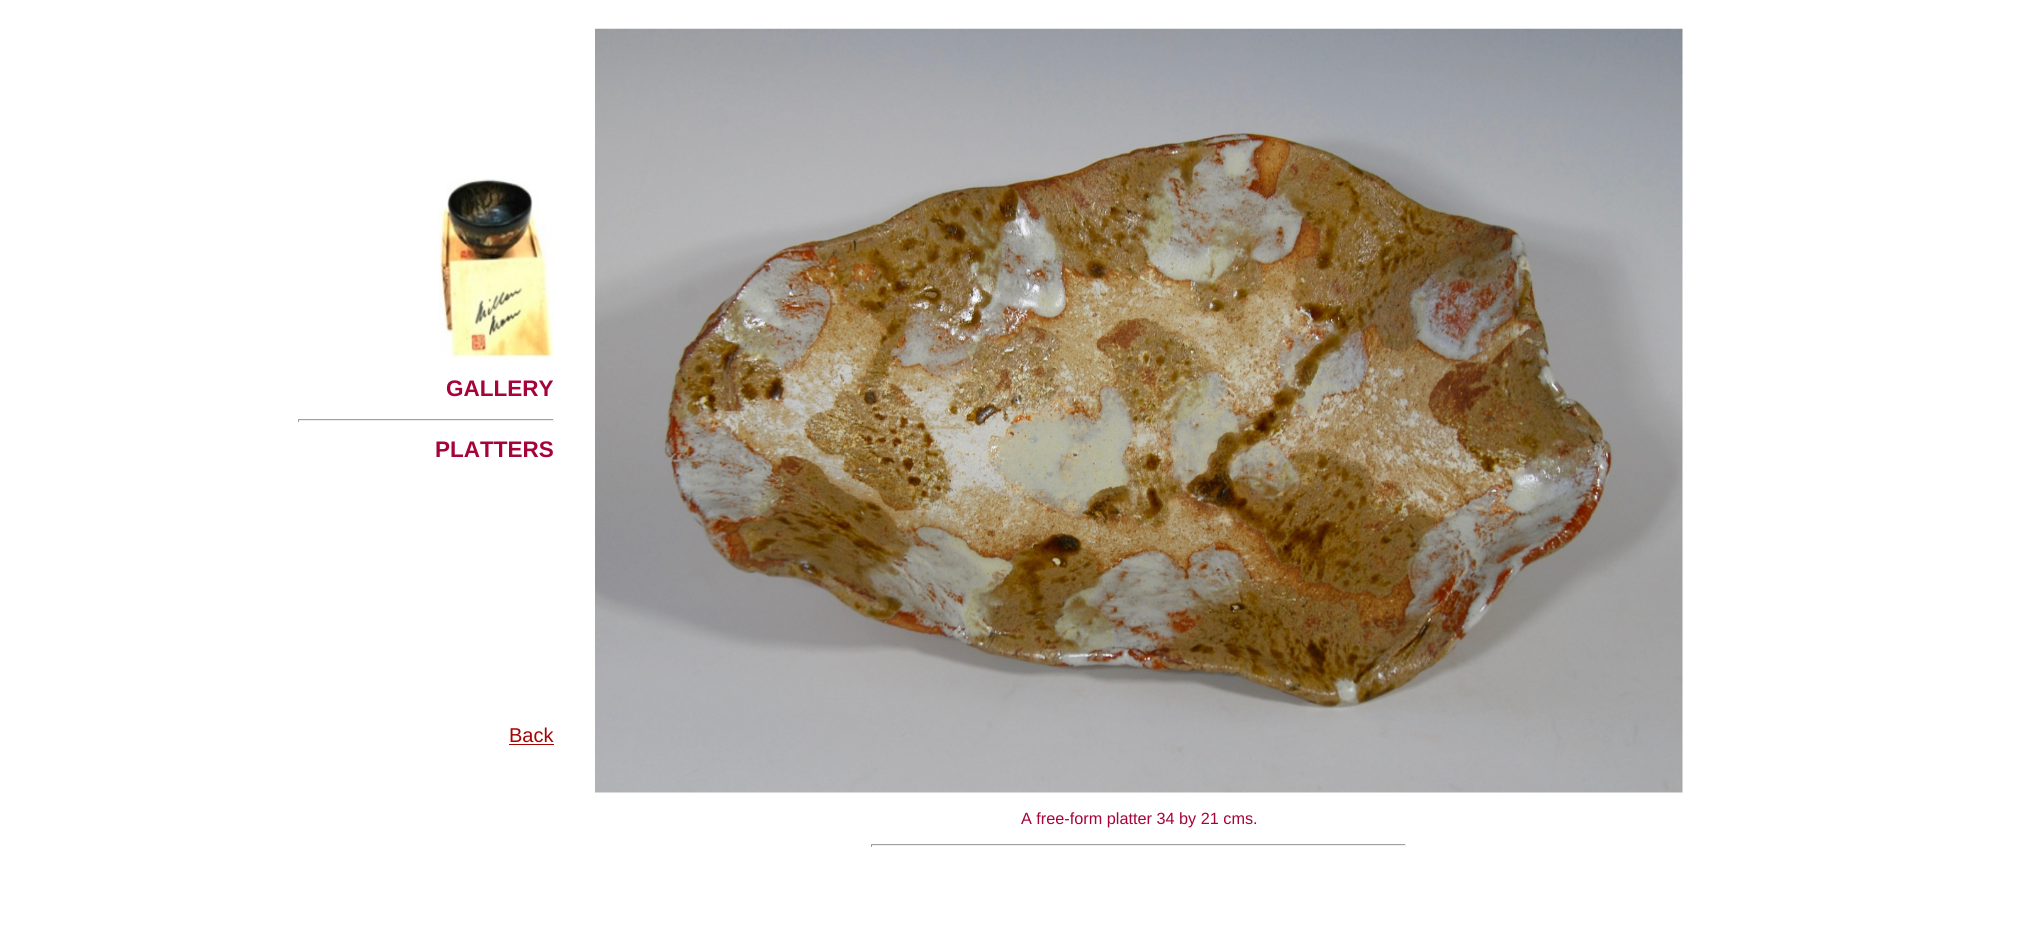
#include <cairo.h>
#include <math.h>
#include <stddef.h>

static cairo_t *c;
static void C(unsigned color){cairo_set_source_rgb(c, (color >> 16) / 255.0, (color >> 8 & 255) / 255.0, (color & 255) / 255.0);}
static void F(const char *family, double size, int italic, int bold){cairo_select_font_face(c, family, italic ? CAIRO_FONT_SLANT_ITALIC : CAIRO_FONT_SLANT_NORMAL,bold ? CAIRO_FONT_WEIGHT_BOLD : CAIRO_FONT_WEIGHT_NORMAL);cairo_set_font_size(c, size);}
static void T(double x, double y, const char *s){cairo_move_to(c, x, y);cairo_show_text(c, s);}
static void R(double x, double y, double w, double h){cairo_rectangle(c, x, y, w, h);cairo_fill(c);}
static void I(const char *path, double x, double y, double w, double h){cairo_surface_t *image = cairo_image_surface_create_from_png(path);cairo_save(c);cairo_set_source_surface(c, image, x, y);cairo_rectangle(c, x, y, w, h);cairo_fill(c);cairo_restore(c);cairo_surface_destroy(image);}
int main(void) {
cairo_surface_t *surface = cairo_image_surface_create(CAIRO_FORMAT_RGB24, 2021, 943);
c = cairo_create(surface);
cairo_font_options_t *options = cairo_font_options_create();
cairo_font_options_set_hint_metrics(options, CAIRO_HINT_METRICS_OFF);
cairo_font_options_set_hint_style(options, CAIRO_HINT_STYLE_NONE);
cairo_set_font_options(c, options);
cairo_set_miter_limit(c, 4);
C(0xffffff);
cairo_paint(c);
I("1.png",439,178,115,182);
F("Liberation Sans",22.5,0,1);
C(0xa60339);
T(446,396,"GALLERY");
C(0x9f9f9f);
R(298,419,256,1);
C(0xeeeeee);
R(553,419,1,3);
R(298,420,256,1);
C(0x9f9f9f);
R(298,419,1,3);
C(0xa60339);
T(435,457,"PLATTERS");
F("Liberation Sans",20,0,0);
C(0xa60303);
T(509,742,"Back");
R(509,744,45,1);
I("2.png",595,28,1088,765);
F("Liberation Sans",16.25,0,0);
C(0xa60339);
T(1021,824,"A free-form platter 34 by 21 cms.");
C(0x9f9f9f);
R(871,844,535,1);
C(0xeeeeee);
R(1405,844,1,3);
R(871,845,535,1);
C(0x9f9f9f);
R(871,844,1,3);
cairo_surface_write_to_png(surface, "o.png");
cairo_font_options_destroy(options);
cairo_destroy(c);
cairo_surface_destroy(surface);
return 0;
}
